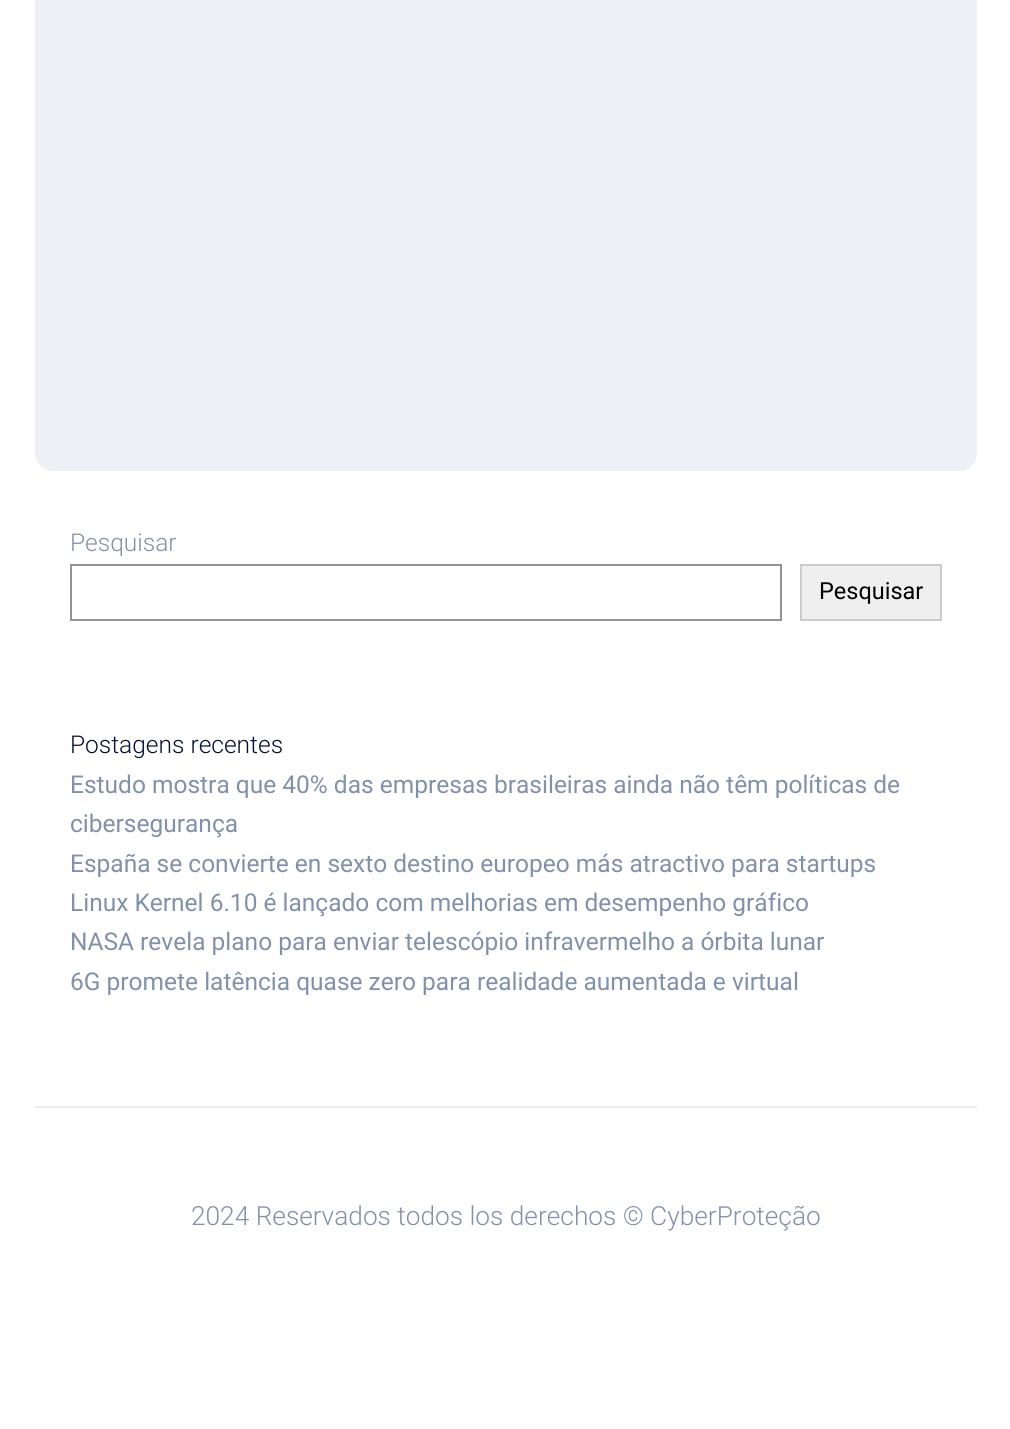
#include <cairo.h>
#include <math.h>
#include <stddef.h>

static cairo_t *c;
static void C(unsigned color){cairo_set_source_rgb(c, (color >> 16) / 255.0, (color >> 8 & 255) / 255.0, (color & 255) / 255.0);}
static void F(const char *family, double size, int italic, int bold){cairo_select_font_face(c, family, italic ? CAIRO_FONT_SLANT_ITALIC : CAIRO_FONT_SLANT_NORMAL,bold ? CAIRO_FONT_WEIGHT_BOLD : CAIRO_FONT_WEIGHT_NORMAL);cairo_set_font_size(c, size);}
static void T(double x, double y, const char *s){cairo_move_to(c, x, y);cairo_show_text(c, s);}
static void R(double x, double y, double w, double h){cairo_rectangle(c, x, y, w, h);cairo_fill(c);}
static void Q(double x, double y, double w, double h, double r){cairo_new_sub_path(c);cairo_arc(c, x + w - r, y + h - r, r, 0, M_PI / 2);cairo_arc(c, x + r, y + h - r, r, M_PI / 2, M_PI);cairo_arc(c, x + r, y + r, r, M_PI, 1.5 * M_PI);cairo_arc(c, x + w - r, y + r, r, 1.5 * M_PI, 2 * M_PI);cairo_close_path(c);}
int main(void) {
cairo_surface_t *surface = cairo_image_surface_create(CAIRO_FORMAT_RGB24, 1010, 1429);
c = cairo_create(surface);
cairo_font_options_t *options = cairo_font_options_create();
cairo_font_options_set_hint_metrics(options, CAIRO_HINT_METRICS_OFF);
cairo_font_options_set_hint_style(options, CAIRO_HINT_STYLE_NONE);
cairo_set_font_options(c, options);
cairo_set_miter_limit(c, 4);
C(0xffffff);
cairo_paint(c);
C(0xedf0f5);
Q(35,-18,942,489,18);
cairo_fill(c);
F("Roboto Light",24.5,0,0);
C(0x8191a9);
T(70,551,"Pesquisar");
cairo_rectangle(c,71,565,710,55);
C(0x949494);
cairo_stroke(c);
C(0xefefef);
cairo_rectangle(c,801,565,140,55);
cairo_fill_preserve(c);
C(0xcccccc);
cairo_stroke(c);
F("Roboto",23.5,0,0);
C(0x000000);
T(819,599,"Pesquisar");
F("Roboto Light",24.5,0,0);
C(0x071232);
T(70,753,"Postagens recentes");
F("Roboto",24.5,0,0);
C(0x8191a9);
T(70,793,"Estudo mostra que 40% das empresas brasileiras ainda não têm políticas de");
T(70,832,"cibersegurança");
T(70,872,"España se convierte en sexto destino europeo más atractivo para startups");
T(70,911,"Linux Kernel 6.10 é lançado com melhorias em desempenho gráfico");
T(70,950,"NASA revela plano para enviar telescópio infravermelho a órbita lunar");
T(70,990,"6G promete latência quase zero para realidade aumentada e virtual");
C(0xebebeb);
R(35,1106,942,2);
F("Roboto Light",26.25,0,0);
C(0x8191a9);
T(191,1225,"2024 Reservados todos los derechos © CyberProteção");
cairo_surface_write_to_png(surface, "o.png");
cairo_font_options_destroy(options);
cairo_destroy(c);
cairo_surface_destroy(surface);
return 0;
}
